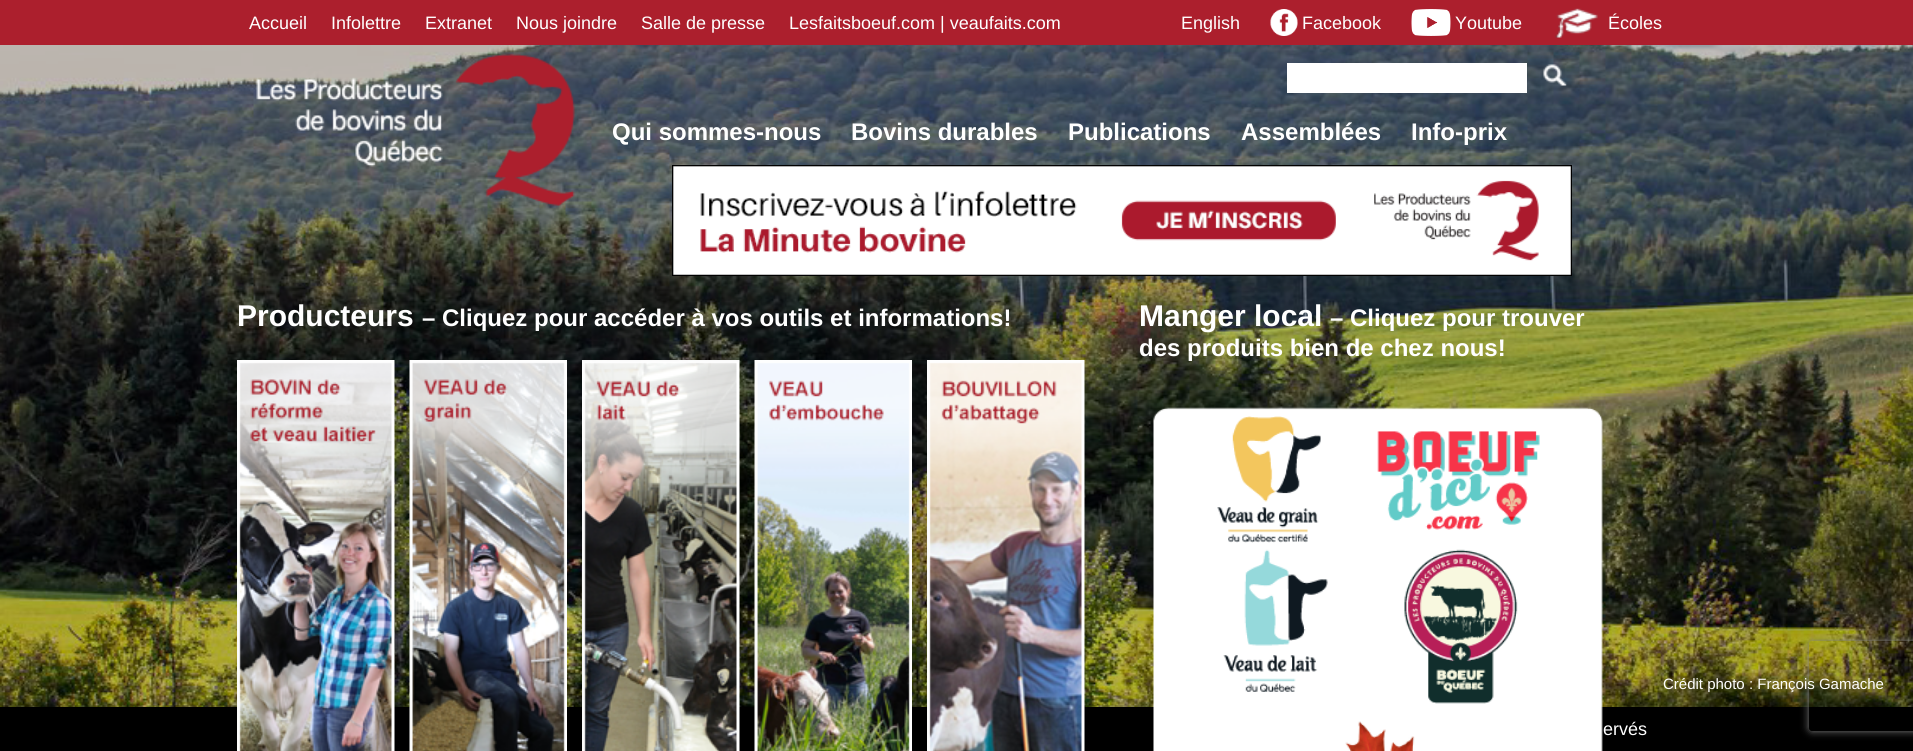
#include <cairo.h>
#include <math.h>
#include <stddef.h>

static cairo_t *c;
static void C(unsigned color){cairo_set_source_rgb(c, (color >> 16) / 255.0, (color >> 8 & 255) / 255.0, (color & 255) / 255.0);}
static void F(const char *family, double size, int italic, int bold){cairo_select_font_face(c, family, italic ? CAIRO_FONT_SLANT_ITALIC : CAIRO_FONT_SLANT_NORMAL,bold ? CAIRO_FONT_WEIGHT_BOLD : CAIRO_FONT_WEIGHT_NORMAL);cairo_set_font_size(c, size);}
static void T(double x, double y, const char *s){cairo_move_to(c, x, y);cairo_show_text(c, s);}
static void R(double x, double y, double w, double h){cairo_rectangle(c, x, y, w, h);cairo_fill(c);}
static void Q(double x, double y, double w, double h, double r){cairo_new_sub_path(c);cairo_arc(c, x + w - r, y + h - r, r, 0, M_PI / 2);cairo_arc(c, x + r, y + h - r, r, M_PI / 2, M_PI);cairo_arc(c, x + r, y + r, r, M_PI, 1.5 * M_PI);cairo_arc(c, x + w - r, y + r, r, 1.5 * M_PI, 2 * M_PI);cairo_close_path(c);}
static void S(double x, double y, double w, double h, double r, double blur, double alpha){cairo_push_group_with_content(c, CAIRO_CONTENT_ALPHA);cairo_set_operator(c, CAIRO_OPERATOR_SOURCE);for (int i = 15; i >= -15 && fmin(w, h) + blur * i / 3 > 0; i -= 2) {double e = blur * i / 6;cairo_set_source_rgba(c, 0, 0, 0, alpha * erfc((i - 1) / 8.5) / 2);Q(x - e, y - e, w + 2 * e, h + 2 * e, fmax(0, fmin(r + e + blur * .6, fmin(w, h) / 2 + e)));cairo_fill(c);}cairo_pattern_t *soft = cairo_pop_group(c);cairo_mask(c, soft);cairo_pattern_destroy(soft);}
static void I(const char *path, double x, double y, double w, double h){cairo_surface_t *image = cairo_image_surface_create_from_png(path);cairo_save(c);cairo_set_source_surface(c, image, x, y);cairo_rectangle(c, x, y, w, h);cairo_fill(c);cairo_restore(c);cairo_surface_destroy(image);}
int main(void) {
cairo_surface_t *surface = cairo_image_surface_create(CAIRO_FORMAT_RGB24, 1913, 751);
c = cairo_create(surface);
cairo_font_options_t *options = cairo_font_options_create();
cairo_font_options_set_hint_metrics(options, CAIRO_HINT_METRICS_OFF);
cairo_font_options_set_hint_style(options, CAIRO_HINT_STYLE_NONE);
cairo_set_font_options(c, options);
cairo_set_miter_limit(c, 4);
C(0xffffff);
cairo_paint(c);
I("1.png",0,45,1913,662);
C(0xac1f2d);
R(0,0,1913,45);
F("Liberation Sans",18,0,0);
C(0xffffff);
T(249,29,"Accueil");
T(331,29,"Infolettre");
T(425,29,"Extranet");
T(516,29,"Nous joindre");
T(641,29,"Salle de presse");
T(789,29,"Lesfaitsboeuf.com | veaufaits.com");
T(1181,29,"English");
I("2.png",1270,9,28,27);
T(1302,29,"Facebook");
I("3.png",1411,9,40,27);
T(1455,29,"Youtube");
I("4.png",1555,8,43,30);
T(1608,29,"Écoles");
I("5.png",256,53,319,153);
R(1287,63,240,30);
I("6.png",1543,64,24,22);
F("Liberation Sans",24,0,1);
T(612,140,"Qui sommes-nous");
T(851,140,"Bovins durables");
T(1068,140,"Publications");
T(1241,140,"Assemblées");
T(1411,140,"Info-prix");
I("7.png",672,165,900,111);
F("Liberation Sans",30,0,1);
T(237,326,"Producteurs");
F("Liberation Sans",24,0,1);
T(422,326,"– Cliquez pour accéder à vos outils et informations!");
C(0x000000);
R(0,707,1913,44);
I("8.png",237,360,158,391);
I("9.png",409,360,158,391);
I("10.png",582,360,158,391);
I("11.png",754,360,158,391);
I("12.png",927,360,158,391);
F("Liberation Sans",30,0,1);
C(0xffffff);
T(1139,326,"Manger local");
F("Liberation Sans",24,0,1);
T(1330,326,"– Cliquez pour trouver");
T(1139,356,"des produits bien de chez nous!");
I("13.png",1153,407,450,344);
cairo_save(c);
cairo_set_fill_rule(c,CAIRO_FILL_RULE_EVEN_ODD);
cairo_new_path(c);
cairo_move_to(c,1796,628);
cairo_line_to(c,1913,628);
cairo_line_to(c,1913,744);
cairo_line_to(c,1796,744);
cairo_close_path(c);
cairo_move_to(c,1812,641);
cairo_line_to(c,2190,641);
cairo_curve_to(c,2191.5,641,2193,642.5,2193,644);
cairo_line_to(c,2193,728);
cairo_curve_to(c,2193,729.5,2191.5,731,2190,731);
cairo_line_to(c,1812,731);
cairo_curve_to(c,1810.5,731,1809,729.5,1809,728);
cairo_line_to(c,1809,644);
cairo_curve_to(c,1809,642.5,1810.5,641,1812,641);
cairo_close_path(c);
cairo_clip(c);
C(0x808080);
S(1809,641,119,90,3,4,1);
cairo_restore(c);
F("Liberation Sans",15,0,0);
T(1663,689,"Crédit photo : François Gamache");
F("Liberation Sans",18,0,0);
T(1603,735,"ervés");
cairo_surface_write_to_png(surface, "o.png");
cairo_font_options_destroy(options);
cairo_destroy(c);
cairo_surface_destroy(surface);
return 0;
}
